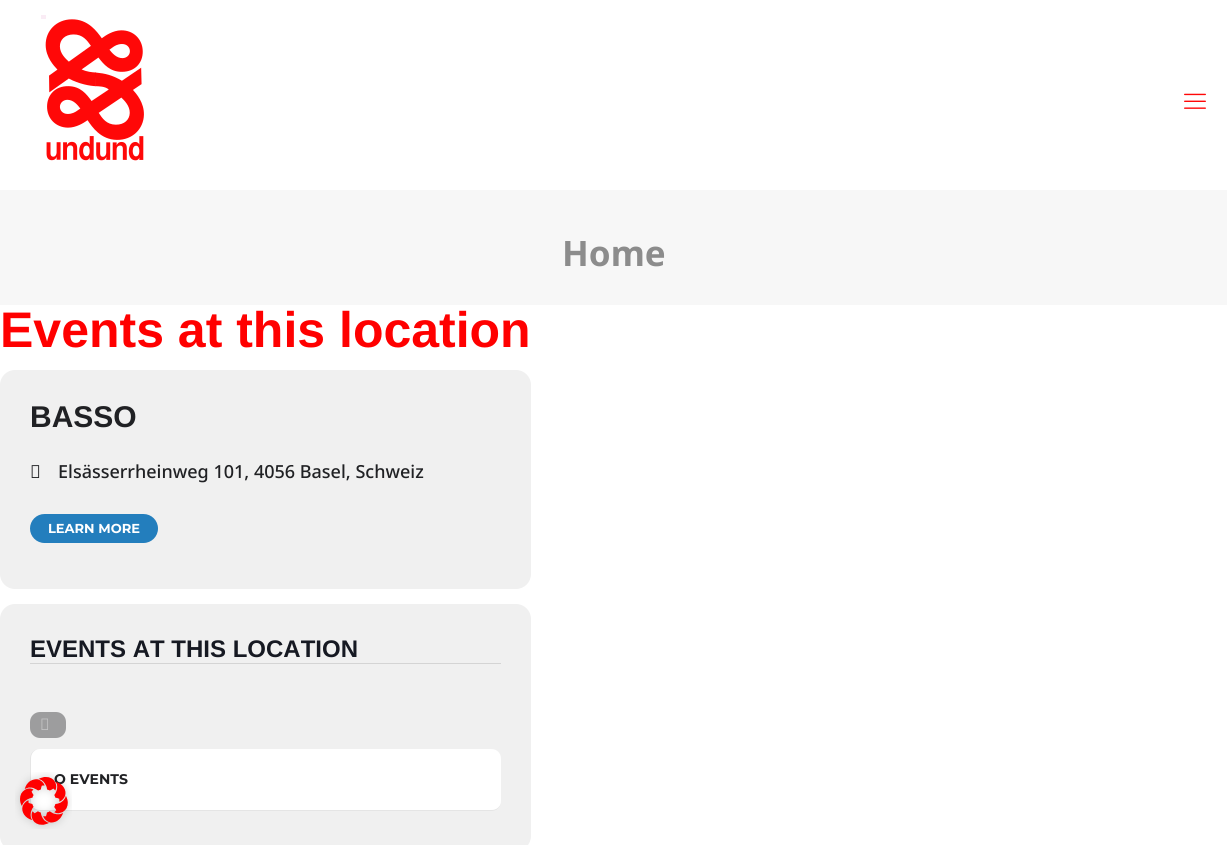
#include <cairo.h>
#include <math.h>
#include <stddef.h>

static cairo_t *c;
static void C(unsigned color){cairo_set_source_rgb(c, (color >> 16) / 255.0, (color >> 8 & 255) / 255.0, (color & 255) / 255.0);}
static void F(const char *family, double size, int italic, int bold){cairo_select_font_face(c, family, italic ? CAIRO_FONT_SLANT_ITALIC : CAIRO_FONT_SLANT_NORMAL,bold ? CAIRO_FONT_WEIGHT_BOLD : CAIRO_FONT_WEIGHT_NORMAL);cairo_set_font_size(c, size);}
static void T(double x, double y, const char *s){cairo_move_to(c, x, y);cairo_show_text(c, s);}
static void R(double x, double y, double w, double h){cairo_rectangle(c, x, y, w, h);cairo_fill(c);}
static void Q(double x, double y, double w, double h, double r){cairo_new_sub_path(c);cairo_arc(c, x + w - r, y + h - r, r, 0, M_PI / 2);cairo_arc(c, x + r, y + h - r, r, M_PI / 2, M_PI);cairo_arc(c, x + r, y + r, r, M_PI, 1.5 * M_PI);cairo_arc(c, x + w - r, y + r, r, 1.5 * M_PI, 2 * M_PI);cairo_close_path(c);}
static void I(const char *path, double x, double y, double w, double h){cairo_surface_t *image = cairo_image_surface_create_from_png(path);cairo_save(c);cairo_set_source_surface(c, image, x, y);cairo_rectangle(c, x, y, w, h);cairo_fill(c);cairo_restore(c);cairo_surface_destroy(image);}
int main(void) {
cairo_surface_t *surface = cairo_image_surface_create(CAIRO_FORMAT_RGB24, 1227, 845);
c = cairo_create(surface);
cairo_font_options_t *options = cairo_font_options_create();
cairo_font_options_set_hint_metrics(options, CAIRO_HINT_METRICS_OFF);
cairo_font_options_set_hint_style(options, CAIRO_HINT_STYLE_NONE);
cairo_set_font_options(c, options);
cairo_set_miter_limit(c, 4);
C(0xffffff);
cairo_paint(c);
I("1.png",41,15,103,146);
I("2.png",1184,93,22,16);
C(0xf7f7f7);
R(0,190,1227,115);
F("Noto Sans",35,0,1);
C(0x8c8c8c);
T(562,266,"Home");
F("Liberation Sans",50,0,1);
C(0xff0000);
T(0,347,"Events at this location");
C(0xf0f0f0);
Q(0,370,531,219,15);
cairo_fill(c);
F("Liberation Sans",30,0,1);
C(0x202124);
T(30,427,"BASSO");
I("3.png",31,465,9,13);
F("Noto Sans Medium",18,0,0);
T(58,478,"Elsässerrheinweg 101, 4056 Basel, Schweiz");
C(0x237ebd);
Q(30,514,128,29,14.5);
cairo_fill(c);
F("Montserrat",13,0,1);
C(0xffffff);
T(48,533,"LEARN MORE");
C(0xf0f0f0);
Q(0,604,531,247,15);
cairo_fill(c);
C(0xd4d4d4);
R(30,663,471,1);
F("Liberation Sans",24,0,1);
C(0x161922);
T(30,657,"EVENTS AT THIS LOCATION");
C(0x9d9d9e);
Q(30,712,36,26,10);
cairo_fill(c);
I("4.png",41,718,7,12);
C(0xe5e5e5);
cairo_set_fill_rule(c,CAIRO_FILL_RULE_EVEN_ODD);
cairo_new_path(c);
cairo_move_to(c,40,749);
cairo_line_to(c,491,749);
cairo_curve_to(c,497,749,501,753,501,759);
cairo_line_to(c,501,801);
cairo_curve_to(c,501,807,497,811,491,811);
cairo_line_to(c,40,811);
cairo_curve_to(c,34,811,30,807,30,801);
cairo_line_to(c,30,759);
cairo_curve_to(c,30,753,34,749,40,749);
cairo_close_path(c);
cairo_move_to(c,40,749);
cairo_line_to(c,491,749);
cairo_curve_to(c,497,749,501,753,501,759);
cairo_line_to(c,501,801);
cairo_curve_to(c,501,806,497,810,491,810);
cairo_line_to(c,40,810);
cairo_curve_to(c,35,810,31,806,31,801);
cairo_line_to(c,31,759);
cairo_curve_to(c,31,753,35,749,40,749);
cairo_close_path(c);
cairo_fill(c);
C(0xffffff);
cairo_set_fill_rule(c,CAIRO_FILL_RULE_WINDING);
cairo_new_path(c);
cairo_move_to(c,40,749);
cairo_curve_to(c,35,749,31,753,31,759);
cairo_line_to(c,31,801);
cairo_curve_to(c,31,806,35,810,40,810);
cairo_line_to(c,491,810);
cairo_curve_to(c,497,810,501,806,501,801);
cairo_line_to(c,501,759);
cairo_curve_to(c,501,753,497,749,491,749);
cairo_close_path(c);
cairo_fill(c);
F("Montserrat",14,0,1);
C(0x202124);
T(54,784,"O EVENTS");
I("5.png",15,772,57,57);
cairo_surface_write_to_png(surface, "o.png");
cairo_font_options_destroy(options);
cairo_destroy(c);
cairo_surface_destroy(surface);
return 0;
}
